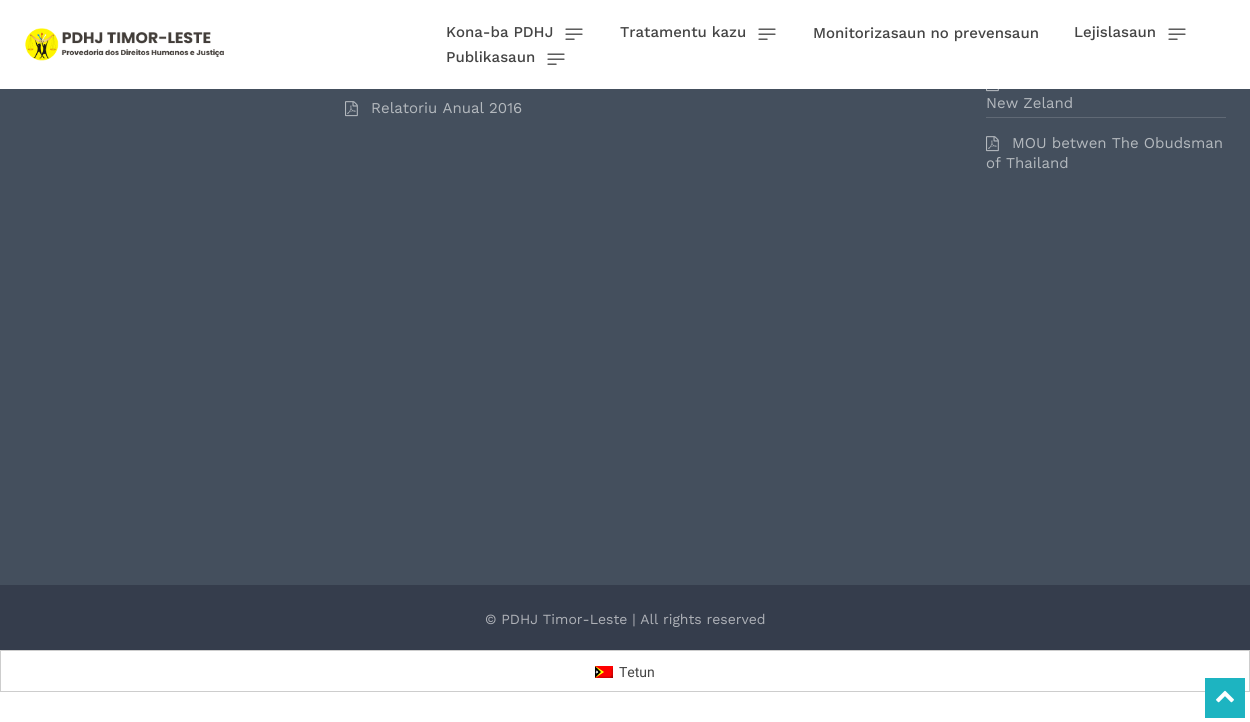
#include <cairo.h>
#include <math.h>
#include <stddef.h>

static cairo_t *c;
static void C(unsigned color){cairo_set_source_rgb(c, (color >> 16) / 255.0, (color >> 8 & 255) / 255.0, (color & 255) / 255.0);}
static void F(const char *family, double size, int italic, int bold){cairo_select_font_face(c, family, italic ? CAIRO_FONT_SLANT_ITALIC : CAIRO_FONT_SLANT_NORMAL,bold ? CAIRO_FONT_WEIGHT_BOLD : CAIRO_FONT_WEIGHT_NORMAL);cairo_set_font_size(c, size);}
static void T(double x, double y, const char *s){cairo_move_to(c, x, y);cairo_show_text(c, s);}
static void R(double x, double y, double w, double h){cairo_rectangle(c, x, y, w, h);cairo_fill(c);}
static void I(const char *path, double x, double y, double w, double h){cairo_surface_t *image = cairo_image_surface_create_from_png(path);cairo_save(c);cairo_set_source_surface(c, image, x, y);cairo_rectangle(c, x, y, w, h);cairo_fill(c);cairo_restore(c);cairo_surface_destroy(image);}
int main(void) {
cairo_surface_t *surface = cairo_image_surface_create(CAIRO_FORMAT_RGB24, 1250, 722);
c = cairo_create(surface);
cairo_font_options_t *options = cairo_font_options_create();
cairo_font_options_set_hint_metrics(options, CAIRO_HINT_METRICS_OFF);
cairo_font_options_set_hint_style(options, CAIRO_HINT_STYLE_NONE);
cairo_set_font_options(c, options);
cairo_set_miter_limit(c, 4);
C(0xffffff);
cairo_paint(c);
I("1.png",25,28,199,33);
F("Work Sans Medium",15,0,0);
C(0x444444);
T(446,37,"Kona-ba PDHJ");
I("2.png",565,28,18,12);
T(620,37,"Tratamentu kazu");
I("2.png",758,28,18,12);
T(813,38,"Monitorizasaun no prevensaun");
T(1074,37,"Lejislasaun");
I("2.png",1168,28,18,12);
T(446,62,"Publikasaun");
I("2.png",547,53,18,12);
C(0x444f5d);
R(0,89,1250,496);
I("3.png",345,101,13,16);
F("Work Sans",15,0,0);
C(0xb4b9be);
T(371,113,"Relatoriu Anual 2016");
C(0x606975);
R(986,117,240,1);
I("4.png",986,89,13,3);
C(0xb4b9be);
T(986,108,"New Zeland");
I("3.png",986,136,13,16);
T(1012,148,"MOU betwen The Obudsman");
T(986,168,"of Thailand");
C(0x353d4c);
R(0,585,1250,65);
F("Work Sans",14,0,0);
C(0xaeb1b7);
T(485,624,"© PDHJ Timor-Leste | All rights reserved");
cairo_rectangle(c,.5,650.5,1249,41);
C(0xcdcdcd);
cairo_set_line_width(c,1);
cairo_stroke(c);
I("5.png",595,666,18,12);
F("Roboto",14,0,0);
C(0x444444);
T(619,677,"Tetun");
C(0x1db4c1);
R(1205,678,40,40);
I("6.png",1216,690,18,13);
cairo_surface_write_to_png(surface, "o.png");
cairo_font_options_destroy(options);
cairo_destroy(c);
cairo_surface_destroy(surface);
return 0;
}
